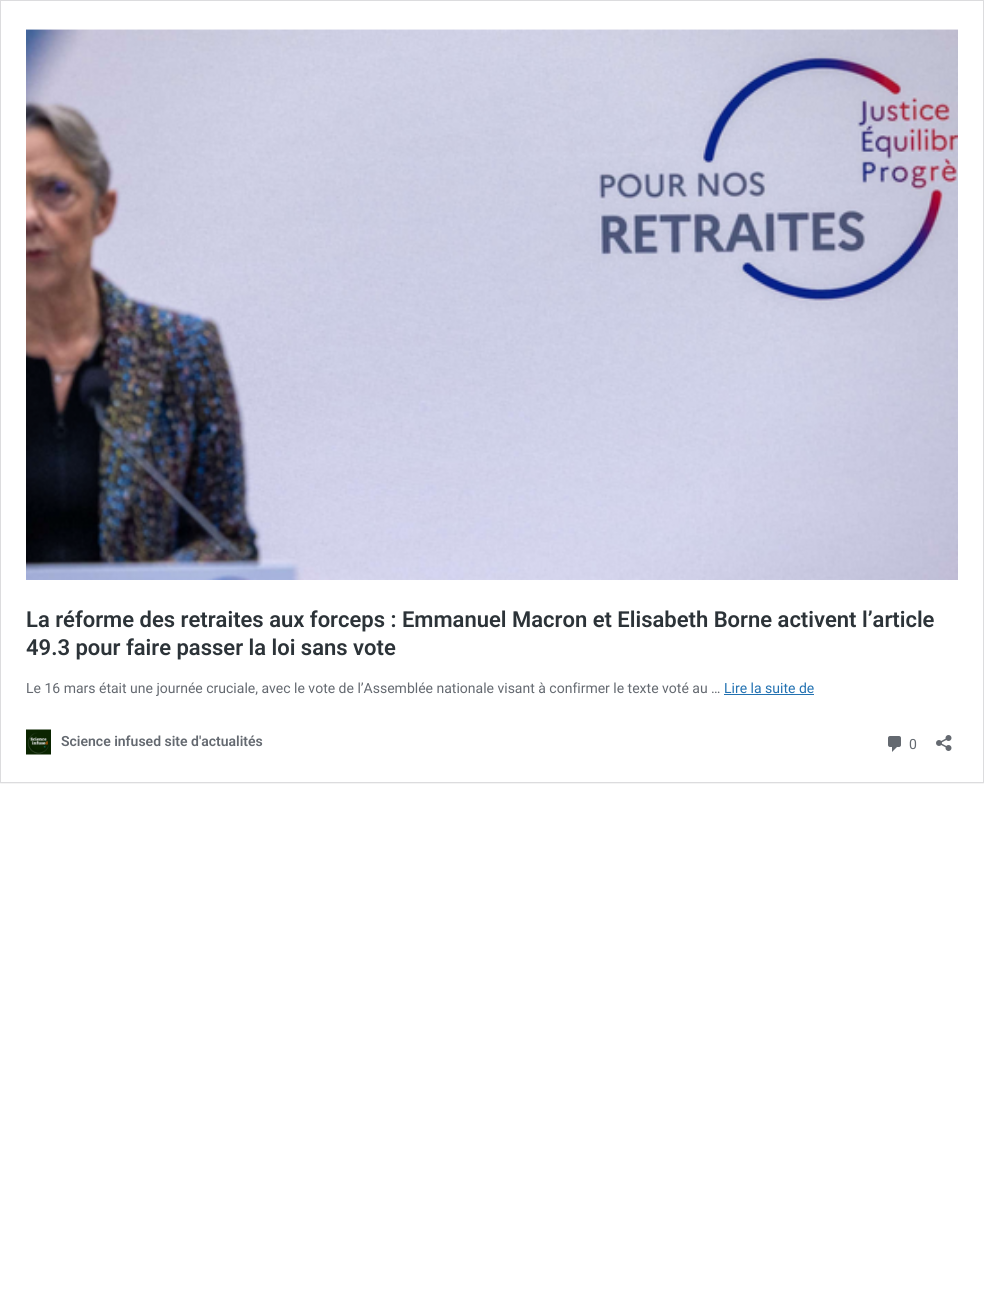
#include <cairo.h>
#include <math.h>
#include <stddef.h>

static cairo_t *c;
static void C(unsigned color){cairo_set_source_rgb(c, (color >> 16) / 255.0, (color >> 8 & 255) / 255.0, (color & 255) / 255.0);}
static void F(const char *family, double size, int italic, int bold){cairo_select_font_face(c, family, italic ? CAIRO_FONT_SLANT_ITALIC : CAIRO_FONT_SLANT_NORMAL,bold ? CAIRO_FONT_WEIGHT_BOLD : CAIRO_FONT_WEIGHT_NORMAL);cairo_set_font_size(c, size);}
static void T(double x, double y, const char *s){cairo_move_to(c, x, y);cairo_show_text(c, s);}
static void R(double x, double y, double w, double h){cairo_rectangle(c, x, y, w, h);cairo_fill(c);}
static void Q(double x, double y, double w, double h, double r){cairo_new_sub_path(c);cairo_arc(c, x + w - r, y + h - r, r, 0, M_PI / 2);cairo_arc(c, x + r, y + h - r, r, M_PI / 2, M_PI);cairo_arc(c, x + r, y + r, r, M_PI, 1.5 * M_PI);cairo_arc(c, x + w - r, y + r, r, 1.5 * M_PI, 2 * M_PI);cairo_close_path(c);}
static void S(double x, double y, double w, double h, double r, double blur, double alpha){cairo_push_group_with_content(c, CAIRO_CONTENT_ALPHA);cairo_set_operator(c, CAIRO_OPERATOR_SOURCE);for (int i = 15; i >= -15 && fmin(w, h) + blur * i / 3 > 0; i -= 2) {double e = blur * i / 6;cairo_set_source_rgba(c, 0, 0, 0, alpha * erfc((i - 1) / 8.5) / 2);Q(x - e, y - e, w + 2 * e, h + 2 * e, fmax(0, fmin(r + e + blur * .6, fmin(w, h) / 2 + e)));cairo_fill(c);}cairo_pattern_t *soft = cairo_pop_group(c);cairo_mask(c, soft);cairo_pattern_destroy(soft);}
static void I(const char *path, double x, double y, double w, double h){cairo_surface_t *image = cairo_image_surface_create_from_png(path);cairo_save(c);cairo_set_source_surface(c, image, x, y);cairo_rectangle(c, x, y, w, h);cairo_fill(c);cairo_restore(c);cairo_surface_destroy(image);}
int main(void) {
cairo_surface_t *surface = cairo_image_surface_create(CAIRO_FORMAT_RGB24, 984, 1299);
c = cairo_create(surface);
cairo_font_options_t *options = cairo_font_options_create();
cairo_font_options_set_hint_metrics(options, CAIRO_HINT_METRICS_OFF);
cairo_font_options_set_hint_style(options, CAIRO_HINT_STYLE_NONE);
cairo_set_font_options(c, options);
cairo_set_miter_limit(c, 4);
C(0xffffff);
cairo_paint(c);
cairo_save(c);
cairo_rectangle(c,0,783,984,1);
cairo_clip(c);
C(0x000000);
S(0,1,984,783,0,.5,.05);
cairo_restore(c);
cairo_rectangle(c,.5,.5,983,782);
C(0xdcdcde);
cairo_set_line_width(c,1);
cairo_stroke(c);
I("1.png",26,29,932,551);
F("Roboto SemiBold",22,0,0);
C(0x2c3338);
T(26,627,"La réforme des retraites aux forceps : Emmanuel Macron et Elisabeth Borne activent l’article");
T(26,655,"49.3 pour faire passer la loi sans vote");
F("Roboto",14,0,0);
C(0x646970);
T(26,693,"Le 16 mars était une journée cruciale, avec le vote de l’Assemblée nationale visant à confirmer le texte voté au …");
C(0x2271b1);
T(724,693,"Lire la suite de");
R(724,694,90,1);
I("2.png",26,729,25,26);
F("Roboto SemiBold",14,0,0);
C(0x646970);
T(61,746,"Science infused site d'actualités");
I("3.png",888,736,13,16);
F("Roboto",14,0,0);
T(909,749,"0");
I("4.png",936,735,16,16);
cairo_surface_write_to_png(surface, "o.png");
cairo_font_options_destroy(options);
cairo_destroy(c);
cairo_surface_destroy(surface);
return 0;
}
